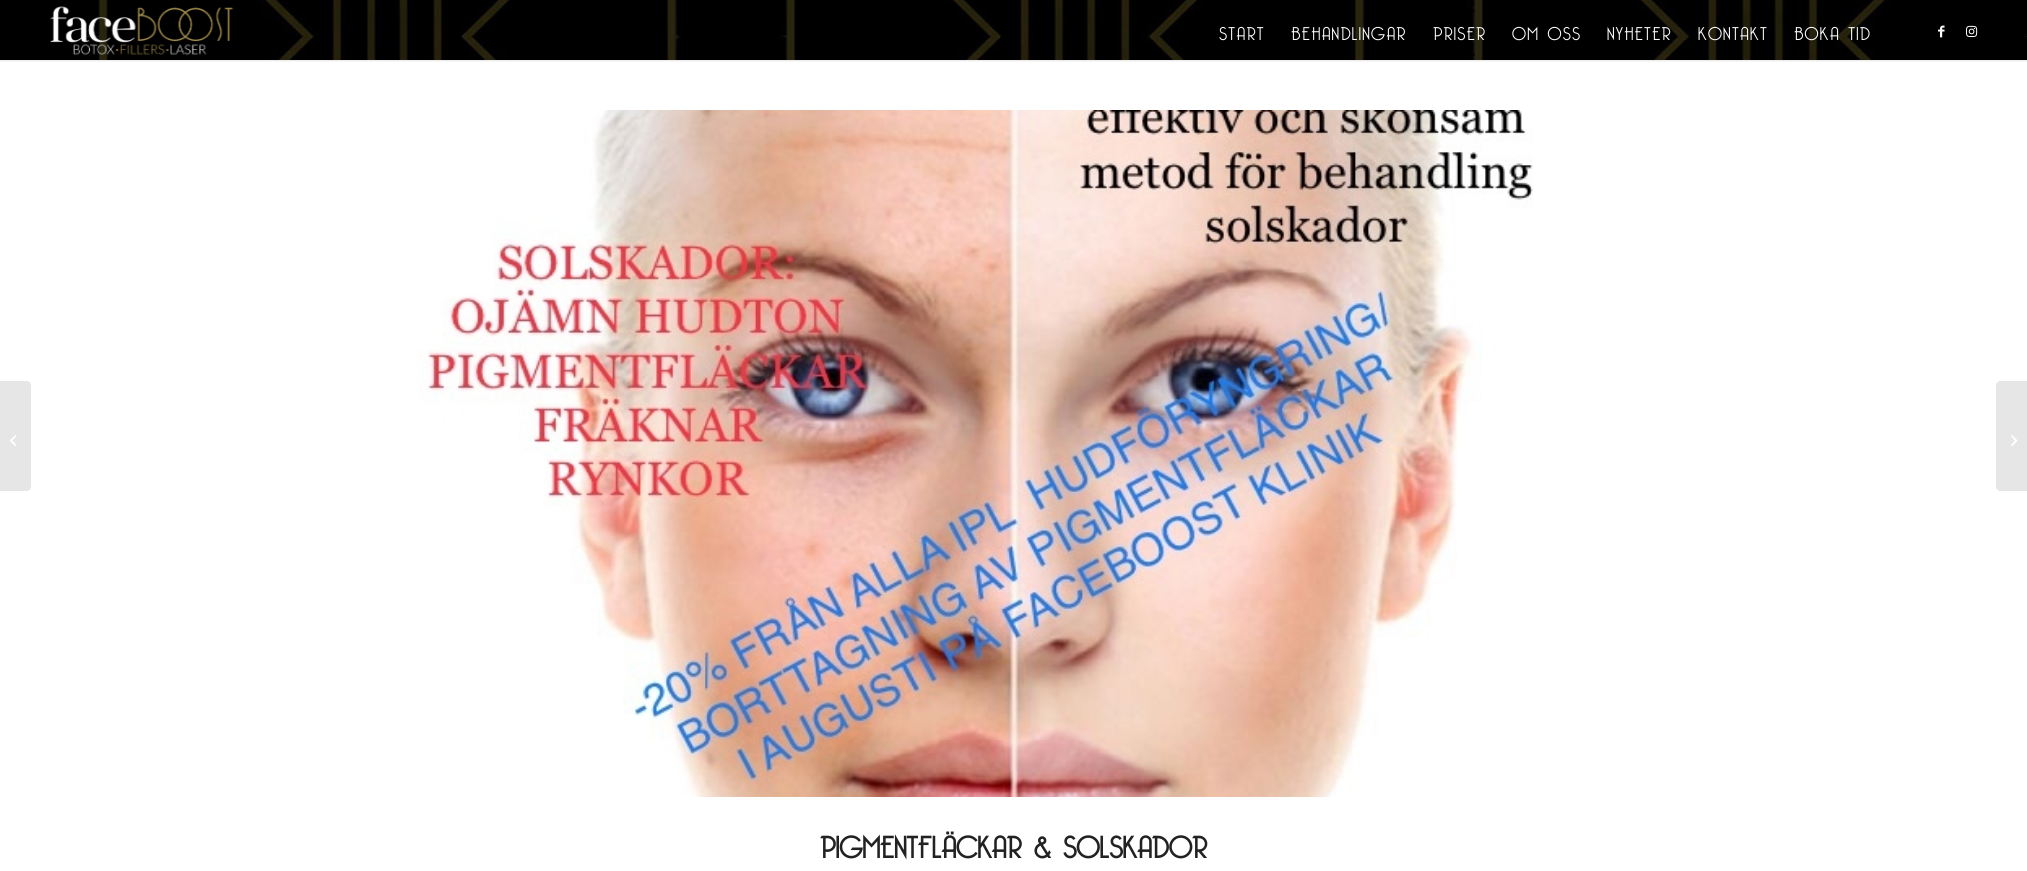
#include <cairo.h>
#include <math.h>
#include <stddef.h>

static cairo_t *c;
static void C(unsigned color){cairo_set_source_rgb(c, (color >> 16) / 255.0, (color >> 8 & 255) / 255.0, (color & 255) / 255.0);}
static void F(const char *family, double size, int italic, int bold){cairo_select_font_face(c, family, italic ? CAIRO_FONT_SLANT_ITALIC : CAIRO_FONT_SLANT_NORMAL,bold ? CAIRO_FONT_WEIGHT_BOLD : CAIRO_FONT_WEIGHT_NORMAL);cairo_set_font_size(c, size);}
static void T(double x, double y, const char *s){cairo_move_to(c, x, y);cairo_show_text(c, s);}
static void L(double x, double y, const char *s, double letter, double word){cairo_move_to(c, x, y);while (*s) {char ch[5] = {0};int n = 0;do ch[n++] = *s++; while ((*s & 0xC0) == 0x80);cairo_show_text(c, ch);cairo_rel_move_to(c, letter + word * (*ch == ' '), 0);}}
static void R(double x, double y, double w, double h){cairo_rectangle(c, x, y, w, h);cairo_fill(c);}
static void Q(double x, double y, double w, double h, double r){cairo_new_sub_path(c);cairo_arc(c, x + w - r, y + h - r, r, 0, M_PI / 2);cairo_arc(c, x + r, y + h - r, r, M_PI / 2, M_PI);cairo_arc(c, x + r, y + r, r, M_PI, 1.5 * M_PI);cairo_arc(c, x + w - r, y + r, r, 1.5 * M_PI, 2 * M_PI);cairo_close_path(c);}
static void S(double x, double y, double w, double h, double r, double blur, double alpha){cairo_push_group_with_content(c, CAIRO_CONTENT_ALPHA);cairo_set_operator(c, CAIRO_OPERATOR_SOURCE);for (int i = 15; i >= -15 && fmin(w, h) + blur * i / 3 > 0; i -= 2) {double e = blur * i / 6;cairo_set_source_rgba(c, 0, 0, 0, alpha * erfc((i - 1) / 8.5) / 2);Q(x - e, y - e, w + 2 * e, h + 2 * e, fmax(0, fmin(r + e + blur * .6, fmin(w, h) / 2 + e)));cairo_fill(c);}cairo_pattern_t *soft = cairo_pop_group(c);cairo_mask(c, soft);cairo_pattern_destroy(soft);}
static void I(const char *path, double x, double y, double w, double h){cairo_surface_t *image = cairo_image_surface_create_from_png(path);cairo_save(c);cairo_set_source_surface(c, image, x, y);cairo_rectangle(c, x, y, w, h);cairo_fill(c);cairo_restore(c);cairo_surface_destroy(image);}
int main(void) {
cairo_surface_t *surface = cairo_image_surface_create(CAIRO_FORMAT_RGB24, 2027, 871);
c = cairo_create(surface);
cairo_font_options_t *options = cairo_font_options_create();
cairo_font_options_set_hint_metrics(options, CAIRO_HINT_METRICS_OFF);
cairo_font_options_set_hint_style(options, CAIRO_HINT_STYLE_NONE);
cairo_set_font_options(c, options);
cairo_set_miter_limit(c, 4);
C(0x000000);
cairo_paint(c);
C(0xffffff);
R(0,60,2027,811);
cairo_save(c);
cairo_rectangle(c,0,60,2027,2);
cairo_clip(c);
C(0x000000);
S(-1,-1,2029,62,0,1,.1);
cairo_restore(c);
I("1.png",84,0,1943,60);
I("2.png",50,6,184,49);
F("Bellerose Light",18,0,0);
L(1219,40,"START",1.25,0);
L(1291,40,"BEHANDLINGAR",1.25,0);
L(1433,40,"PRISER",1.25,0);
L(1512,40,"OM OSS",1.25,0);
L(1607,40,"NYHETER",1.25,0);
L(1698,40,"KONTAKT",1.25,0);
L(1794,40,"BOKA TID",1.25,0);
I("3.png",1938,25,7,13);
I("4.png",1966,25,12,12);
C(0xe6e6e6);
cairo_new_path(c);
cairo_move_to(c,0,381);
cairo_line_to(c,27,381);
cairo_curve_to(c,29,381,31,383,31,385);
cairo_line_to(c,31,487);
cairo_curve_to(c,31,489,29,491,27,491);
cairo_line_to(c,0,491);
cairo_close_path(c);
cairo_fill(c);
I("5.png",10,435,7,11);
cairo_new_path(c);
cairo_move_to(c,2000,381);
cairo_line_to(c,2027,381);
cairo_line_to(c,2027,491);
cairo_line_to(c,2000,491);
cairo_curve_to(c,1998,491,1996,489,1996,487);
cairo_line_to(c,1996,385);
cairo_curve_to(c,1996,383,1998,381,2000,381);
cairo_close_path(c);
cairo_fill(c);
I("6.png",2011,435,7,11);
I("7.png",419,110,1114,687);
F("Bellerose",30,0,1);
C(0x222222);
T(820,858,"PIGMENTFLÄCKAR & SOLSKADOR");
cairo_surface_write_to_png(surface, "o.png");
cairo_font_options_destroy(options);
cairo_destroy(c);
cairo_surface_destroy(surface);
return 0;
}
